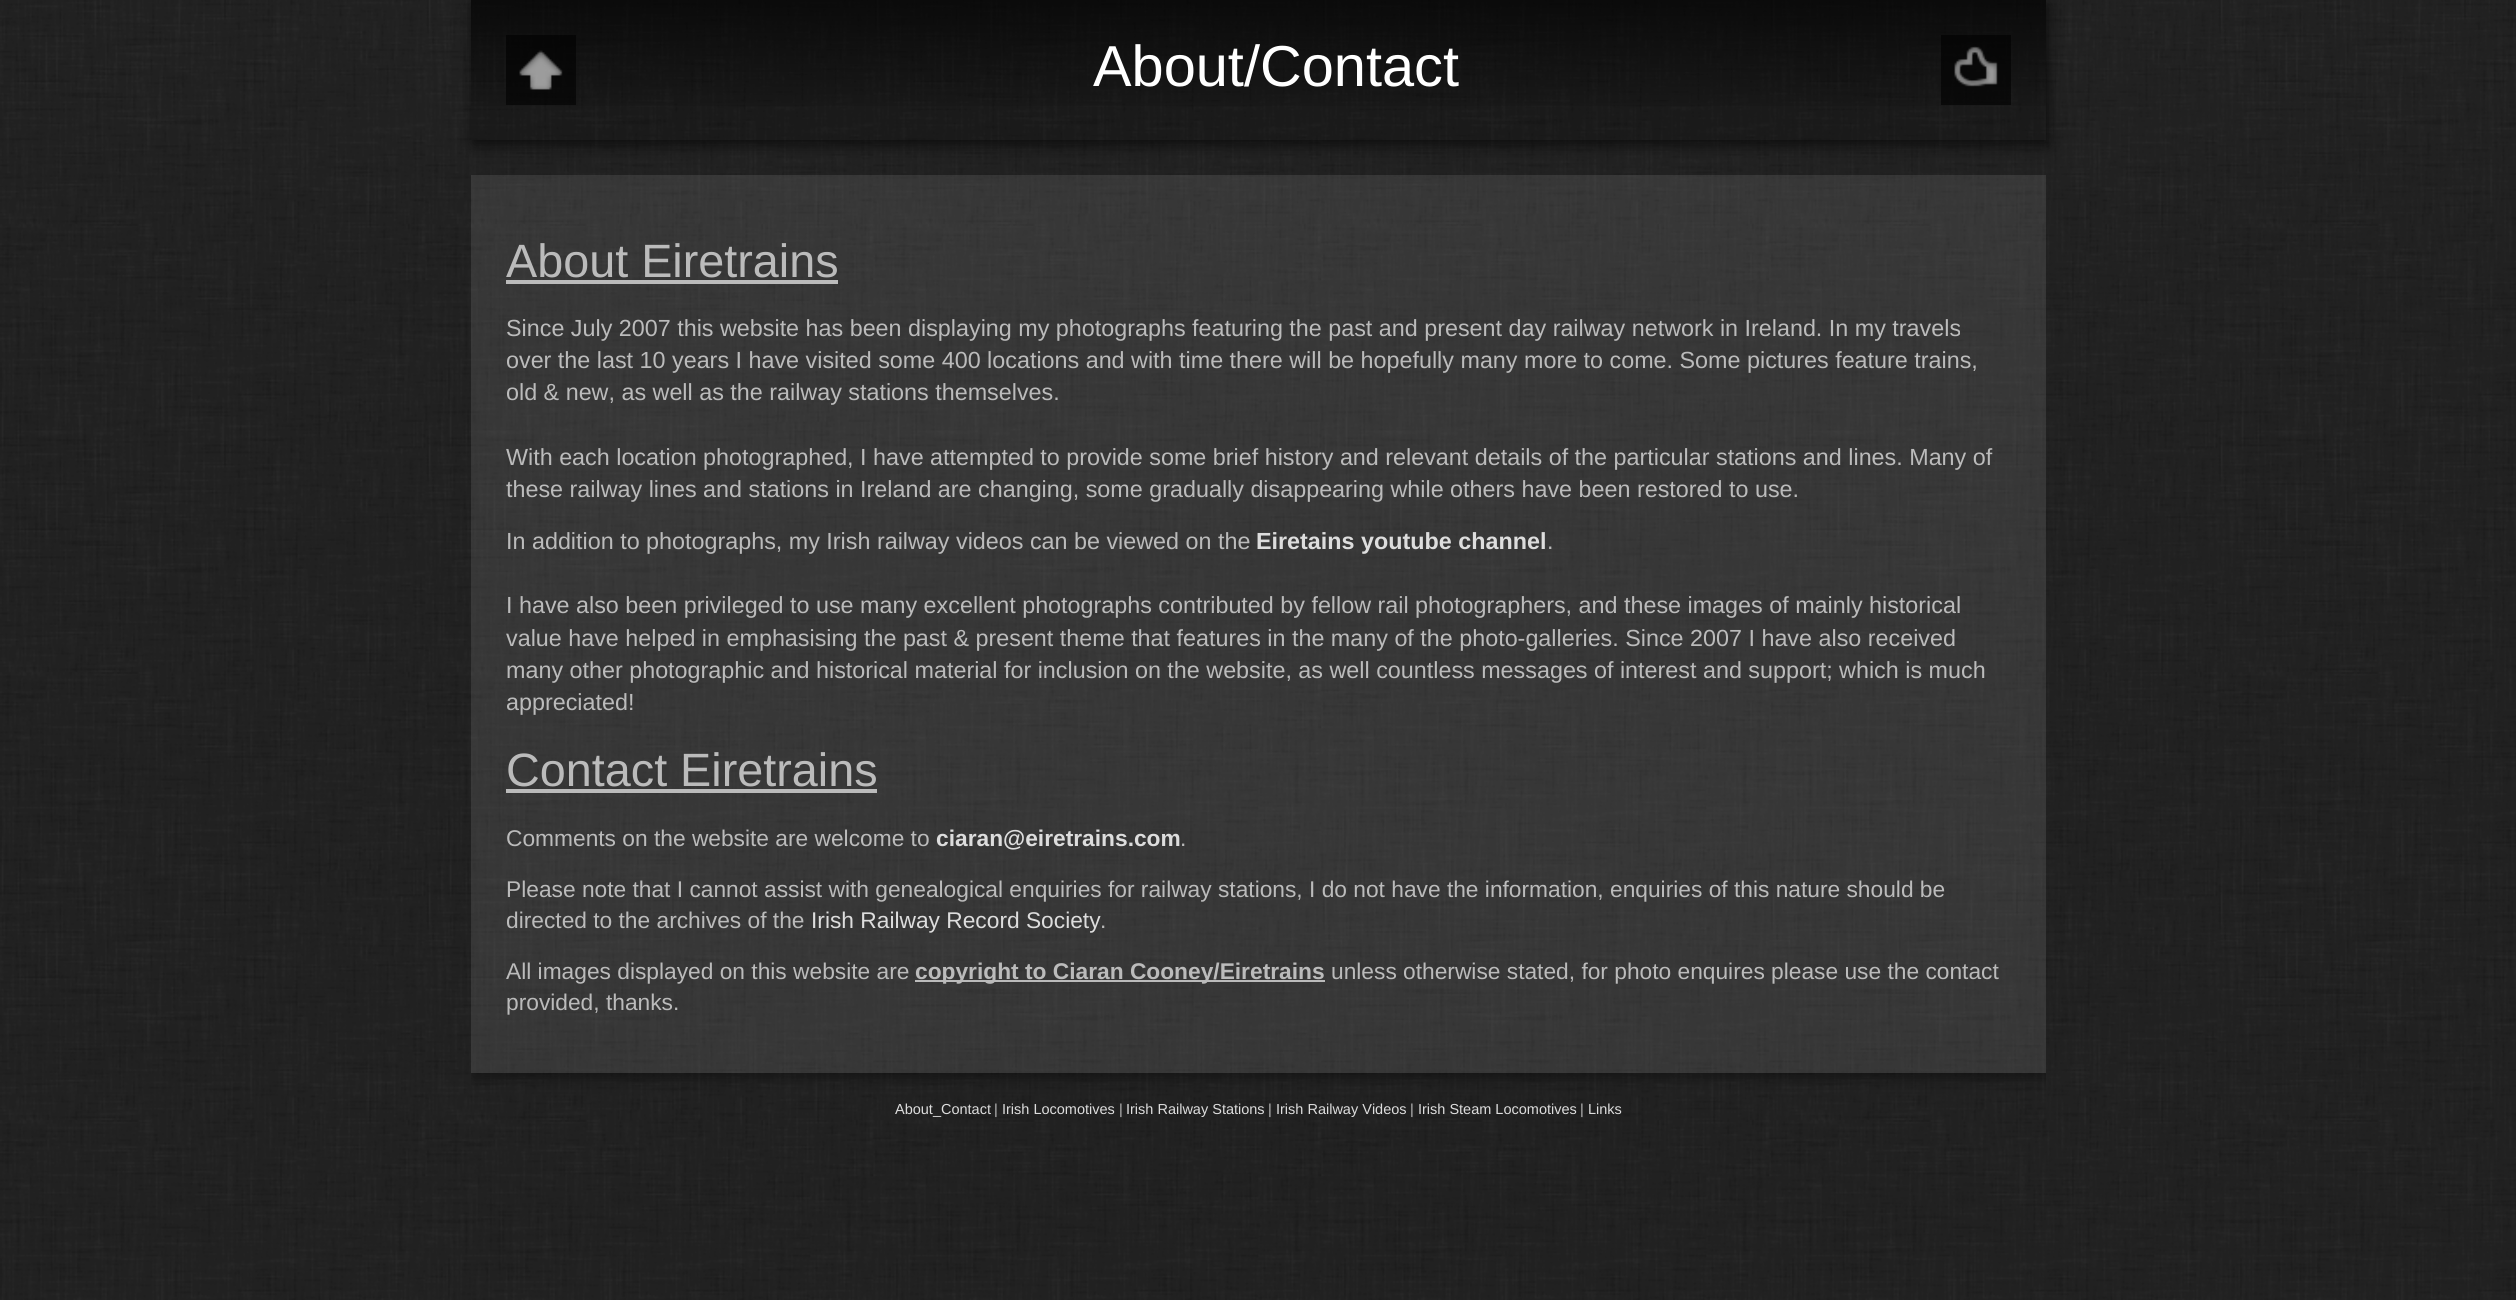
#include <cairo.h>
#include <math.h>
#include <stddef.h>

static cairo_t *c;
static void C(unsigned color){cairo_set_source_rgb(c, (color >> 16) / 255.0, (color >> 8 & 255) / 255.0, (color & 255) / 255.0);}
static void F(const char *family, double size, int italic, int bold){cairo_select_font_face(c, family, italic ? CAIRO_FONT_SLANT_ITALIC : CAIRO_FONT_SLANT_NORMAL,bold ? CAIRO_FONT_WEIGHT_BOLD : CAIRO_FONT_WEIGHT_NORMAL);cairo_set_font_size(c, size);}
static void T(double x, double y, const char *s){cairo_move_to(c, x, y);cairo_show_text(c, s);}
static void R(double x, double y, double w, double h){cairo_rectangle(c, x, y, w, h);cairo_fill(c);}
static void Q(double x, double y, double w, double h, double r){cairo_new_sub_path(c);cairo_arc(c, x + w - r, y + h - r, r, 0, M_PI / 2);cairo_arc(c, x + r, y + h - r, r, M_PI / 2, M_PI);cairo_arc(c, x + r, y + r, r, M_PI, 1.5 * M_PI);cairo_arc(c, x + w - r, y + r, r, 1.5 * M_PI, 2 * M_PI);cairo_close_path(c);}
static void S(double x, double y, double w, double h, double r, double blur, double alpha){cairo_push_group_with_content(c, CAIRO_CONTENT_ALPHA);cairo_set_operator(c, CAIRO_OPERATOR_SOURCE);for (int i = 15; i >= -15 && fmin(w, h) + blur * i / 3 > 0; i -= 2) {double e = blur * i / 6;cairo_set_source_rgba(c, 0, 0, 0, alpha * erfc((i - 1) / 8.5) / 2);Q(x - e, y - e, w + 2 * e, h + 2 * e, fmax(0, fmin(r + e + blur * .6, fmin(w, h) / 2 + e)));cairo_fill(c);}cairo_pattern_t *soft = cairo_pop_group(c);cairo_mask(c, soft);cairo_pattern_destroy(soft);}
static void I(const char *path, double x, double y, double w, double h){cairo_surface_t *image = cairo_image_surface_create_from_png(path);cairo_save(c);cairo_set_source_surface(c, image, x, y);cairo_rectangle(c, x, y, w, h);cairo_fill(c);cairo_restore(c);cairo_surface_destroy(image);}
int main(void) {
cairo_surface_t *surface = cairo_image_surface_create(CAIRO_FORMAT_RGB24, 2516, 1300);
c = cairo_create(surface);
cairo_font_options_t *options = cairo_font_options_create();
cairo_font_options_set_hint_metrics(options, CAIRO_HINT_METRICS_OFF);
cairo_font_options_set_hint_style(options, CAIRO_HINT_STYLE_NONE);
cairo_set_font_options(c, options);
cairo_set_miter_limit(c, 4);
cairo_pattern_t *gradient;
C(0x222222);
cairo_paint(c);
I("1.png",0,0,2516,1300);
cairo_save(c);
cairo_set_fill_rule(c,CAIRO_FILL_RULE_EVEN_ODD);
cairo_new_path(c);
cairo_move_to(c,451,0);
cairo_line_to(c,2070,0);
cairo_line_to(c,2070,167);
cairo_line_to(c,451,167);
cairo_close_path(c);
cairo_move_to(c,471,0);
cairo_line_to(c,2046,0);
cairo_line_to(c,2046,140);
cairo_line_to(c,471,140);
cairo_close_path(c);
cairo_clip(c);
C(0x000000);
S(473,5,1575,140,0,7,.6);
cairo_restore(c);
cairo_set_source_rgba(c,0,0,0,0.2);
R(471,0,1575,140);
gradient = cairo_pattern_create_linear(1258,0,1258,123);
cairo_pattern_add_color_stop_rgba(gradient,0,0,0,0,.6);
cairo_pattern_add_color_stop_rgba(gradient,1,0,0,0,0);
cairo_set_source(c,gradient);
cairo_pattern_destroy(gradient);
R(471,0,1575,106);
cairo_set_source_rgba(c,0,0,0,0.6);
R(506,35,70,70);
I("2.png",519,50,44,40);
F("Liberation Sans",57.75,0,0);
C(0xffffff);
T(1093,86,"About/Contact");
cairo_set_source_rgba(c,0,0,0,0.6);
R(1941,35,70,70);
I("3.png",1954,46,44,41);
cairo_save(c);
cairo_rectangle(c,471,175,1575,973);
cairo_clip(c);
cairo_set_fill_rule(c,CAIRO_FILL_RULE_EVEN_ODD);
cairo_new_path(c);
cairo_move_to(c,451,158);
cairo_line_to(c,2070,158);
cairo_line_to(c,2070,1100);
cairo_line_to(c,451,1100);
cairo_close_path(c);
cairo_move_to(c,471,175);
cairo_line_to(c,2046,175);
cairo_line_to(c,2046,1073);
cairo_line_to(c,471,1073);
cairo_close_path(c);
cairo_clip(c);
C(0x000000);
S(473,180,1575,898,0,7,.4);
cairo_restore(c);
cairo_set_source_rgba(c,1,1,1,0.1);
R(471,175,1575,898);
F("Liberation Sans",46.75,0,0);
C(0xbbbbbb);
T(506,277,"About Eiretrains");
R(506,280,332,4);
F("Liberation Sans",23.33,0,0);
T(506,336,"Since July 2007 this website has been displaying my photographs featuring the past and present day railway network in Ireland. In my travels");
T(506,368,"over the last 10 years I have visited some 400 locations and with time there will be hopefully many more to come. Some pictures feature trains,");
T(506,400,"old & new, as well as the railway stations themselves.");
T(506,465,"With each location photographed, I have attempted to provide some brief history and relevant details of the particular stations and lines. Many of");
T(506,497,"these railway lines and stations in Ireland are changing, some gradually disappearing while others have been restored to use.");
T(506,549,"In addition to photographs, my Irish railway videos can be viewed on the");
F("Liberation Sans",23.33,0,1);
C(0xdddddd);
T(1256,549,"Eiretains youtube channel");
F("Liberation Sans",23.33,0,0);
C(0xbbbbbb);
T(1547,549,".");
T(506,613,"I have also been privileged to use many excellent photographs contributed by fellow rail photographers, and these images of mainly historical");
T(506,646,"value have helped in emphasising the past & present theme that features in the many of the photo-galleries. Since 2007 I have also received");
T(506,678,"many other photographic and historical material for inclusion on the website, as well countless messages of interest and support; which is much");
T(506,710,"appreciated!");
F("Liberation Sans",46.75,0,0);
T(506,786,"Contact Eiretrains");
R(506,789,371,4);
F("Liberation Sans",22.75,0,0);
T(506,846,"Comments on the website are welcome to");
F("Liberation Sans",22.75,0,1);
C(0xdddddd);
T(936,846,"ciaran@eiretrains.com");
F("Liberation Sans",22.75,0,0);
C(0xbbbbbb);
T(1180,846,".");
T(506,897,"Please note that I cannot assist with genealogical enquiries for railway stations, I do not have the information, enquiries of this nature should be");
T(506,928,"directed to the archives of the");
C(0xdddddd);
T(811,928,"Irish Railway Record Society");
C(0xbbbbbb);
T(1100,928,".");
T(506,979,"All images displayed on this website are");
R(915,980,410,2);
F("Liberation Sans",22.75,0,1);
T(915,979,"copyright to Ciaran Cooney/Eiretrains");
F("Liberation Sans",22.75,0,0);
T(1331,979,"unless otherwise stated, for photo enquires please use the contact");
T(506,1010,"provided, thanks.");
F("Liberation Sans",14.5,0,0);
C(0xdddddd);
T(895,1114,"About_Contact");
C(0xbbbbbb);
T(994,1114,"|");
C(0xdddddd);
T(1002,1114,"Irish Locomotives");
C(0xbbbbbb);
T(1119,1114,"|");
C(0xdddddd);
T(1126,1114,"Irish Railway Stations");
C(0xbbbbbb);
T(1268,1114,"|");
C(0xdddddd);
T(1276,1114,"Irish Railway Videos");
C(0xbbbbbb);
T(1410,1114,"|");
C(0xdddddd);
T(1418,1114,"Irish Steam Locomotives");
C(0xbbbbbb);
T(1580,1114,"|");
C(0xdddddd);
T(1588,1114,"Links");
cairo_surface_write_to_png(surface, "o.png");
cairo_font_options_destroy(options);
cairo_destroy(c);
cairo_surface_destroy(surface);
return 0;
}
